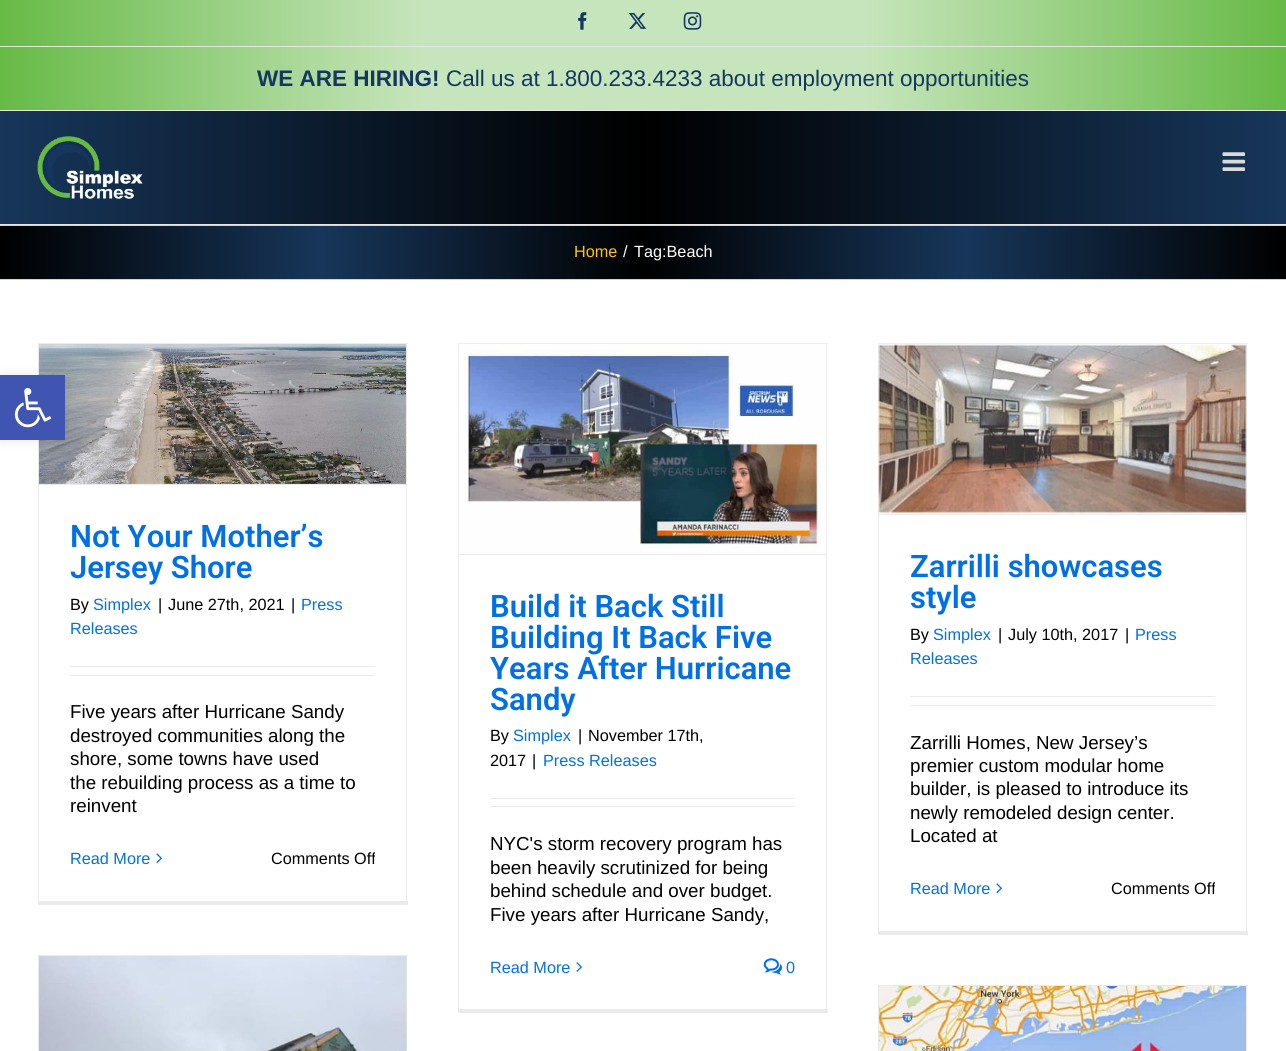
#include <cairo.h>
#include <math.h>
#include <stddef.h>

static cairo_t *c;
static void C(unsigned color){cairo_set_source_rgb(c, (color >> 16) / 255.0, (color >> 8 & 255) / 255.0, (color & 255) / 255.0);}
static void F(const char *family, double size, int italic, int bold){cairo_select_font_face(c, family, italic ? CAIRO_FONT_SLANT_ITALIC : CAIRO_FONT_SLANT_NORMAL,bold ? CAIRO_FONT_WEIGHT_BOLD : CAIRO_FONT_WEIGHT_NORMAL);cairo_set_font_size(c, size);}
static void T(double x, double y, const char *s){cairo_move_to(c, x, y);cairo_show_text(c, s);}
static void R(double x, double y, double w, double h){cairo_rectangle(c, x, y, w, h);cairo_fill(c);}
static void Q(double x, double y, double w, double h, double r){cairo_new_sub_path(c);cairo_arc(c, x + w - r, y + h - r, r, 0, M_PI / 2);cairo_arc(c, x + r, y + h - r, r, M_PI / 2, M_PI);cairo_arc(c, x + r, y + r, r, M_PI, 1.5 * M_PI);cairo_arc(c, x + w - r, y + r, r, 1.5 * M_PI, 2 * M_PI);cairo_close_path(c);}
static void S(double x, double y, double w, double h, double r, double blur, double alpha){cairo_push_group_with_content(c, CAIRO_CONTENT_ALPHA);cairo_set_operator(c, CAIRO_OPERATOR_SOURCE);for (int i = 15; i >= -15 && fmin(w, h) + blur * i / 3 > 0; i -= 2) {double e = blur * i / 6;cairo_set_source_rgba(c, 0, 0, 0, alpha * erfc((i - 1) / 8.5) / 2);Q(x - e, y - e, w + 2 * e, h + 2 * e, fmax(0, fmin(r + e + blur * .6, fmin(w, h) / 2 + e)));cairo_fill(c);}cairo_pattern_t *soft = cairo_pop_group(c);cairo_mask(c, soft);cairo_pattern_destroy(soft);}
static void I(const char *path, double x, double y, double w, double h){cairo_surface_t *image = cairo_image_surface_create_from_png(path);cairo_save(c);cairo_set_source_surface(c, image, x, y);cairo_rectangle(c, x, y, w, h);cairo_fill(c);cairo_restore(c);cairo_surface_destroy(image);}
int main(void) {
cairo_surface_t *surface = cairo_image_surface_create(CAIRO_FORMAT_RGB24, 1286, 1051);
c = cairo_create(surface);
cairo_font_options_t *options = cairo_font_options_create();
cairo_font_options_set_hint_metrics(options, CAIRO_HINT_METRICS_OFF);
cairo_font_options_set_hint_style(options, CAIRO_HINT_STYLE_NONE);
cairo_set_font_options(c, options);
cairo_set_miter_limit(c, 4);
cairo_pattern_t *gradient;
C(0xffffff);
cairo_paint(c);
C(0xebeaea);
R(38,343,370,1);
R(406,343,1,562);
R(38,901,370,4);
R(38,343,1,562);
I("7.png",39,344,367,140);
C(0x000000);
S(0,375,65,65,0,6,.1);
C(0x4054b2);
R(0,375,65,65);
I("1.png",14,388,38,40);
gradient = cairo_pattern_create_linear(0,55,1286,55);
cairo_pattern_add_color_stop_rgba(gradient,0,0.404,0.729,0.275,1);
cairo_pattern_add_color_stop_rgba(gradient,.33,0.78,0.898,0.737,1);
cairo_pattern_add_color_stop_rgba(gradient,.67,0.78,0.898,0.737,1);
cairo_pattern_add_color_stop_rgba(gradient,1,0.404,0.729,0.275,1);
cairo_set_source(c,gradient);
cairo_pattern_destroy(gradient);
R(0,0,1286,110);
C(0xe5e5e5);
R(0,110,1286,1);
R(0,46,1286,1);
I("2.png",578,12,9,18);
I("3.png",628,13,19,16);
I("4.png",683,12,19,18);
F("Liberation Sans",22.5,0,1);
C(0x14365f);
T(257,86,"WE ARE HIRING!");
F("Liberation Sans",22.5,0,0);
T(446,86,"Call us at 1.800.233.4233 about employment opportunities");
gradient = cairo_pattern_create_linear(0,168,1286,167);
cairo_pattern_add_color_stop_rgba(gradient,0,0.09,0.212,0.353,1);
cairo_pattern_add_color_stop_rgba(gradient,.5,0,0,0,1);
cairo_pattern_add_color_stop_rgba(gradient,1,0.09,0.212,0.353,1);
cairo_set_source(c,gradient);
cairo_pattern_destroy(gradient);
R(0,111,1286,113);
C(0xe5e5e5);
R(0,224,1286,1);
I("5.png",37,136,106,63);
I("6.png",1222,152,23,19);
gradient = cairo_pattern_create_linear(0,253,1286,252);
cairo_pattern_add_color_stop_rgba(gradient,0,0,0,0,1);
cairo_pattern_add_color_stop_rgba(gradient,.25,0.09,0.212,0.353,1);
cairo_pattern_add_color_stop_rgba(gradient,.5,0,0,0,1);
cairo_pattern_add_color_stop_rgba(gradient,.75,0.09,0.212,0.353,1);
cairo_pattern_add_color_stop_rgba(gradient,1,0,0,0,1);
cairo_set_source(c,gradient);
cairo_pattern_destroy(gradient);
R(0,226,1286,53);
C(0xd2d3d4);
R(0,225,1286,1);
R(0,279,1286,1);
F("Liberation Sans",16.25,0,0);
C(0xffc600);
T(574,257,"Home");
C(0xffffff);
T(623,257,"/");
T(634,257,"Tag:Beach");
C(0xebeaea);
R(39,484,367,1);
F("Roboto SemiBold",31,0,0);
C(0x0270e5);
T(70,547,"Not Your Mother’s");
T(70,578,"Jersey Shore");
F("Liberation Sans",16.25,0,0);
C(0x000000);
T(70,610,"By");
C(0x0270e5);
T(93,610,"Simplex");
C(0x000000);
T(158,610,"|");
T(168,610,"June 27th, 2021");
T(291,610,"|");
C(0x0270e5);
T(301,610,"Press");
T(70,634,"Releases");
C(0xeaeaea);
R(70,666,305,1);
R(70,675,305,1);
F("Liberation Sans",18.75,0,0);
C(0x000000);
T(70,718,"Five years after Hurricane Sandy");
T(70,742,"destroyed communities along the");
T(70,765,"shore, some towns have used");
T(70,789,"the rebuilding process as a time to");
T(70,812,"reinvent");
F("Liberation Sans",16.25,0,0);
C(0x0270e5);
T(70,864,"Read More");
I("8.png",156,853,6,11);
cairo_save(c);
cairo_rectangle(c,70,843,305,33);
cairo_clip(c);
C(0x000000);
T(271,864,"Comments Off");
cairo_restore(c);
C(0xebeaea);
R(458,343,370,1);
R(826,343,1,670);
R(458,1009,370,4);
R(458,343,1,670);
R(459,554,367,1);
I("9.png",458,343,369,210);
F("Roboto SemiBold",31,0,0);
C(0x0270e5);
T(490,617,"Build it Back Still");
T(490,648,"Building It Back Five");
T(490,679,"Years After Hurricane");
T(490,710,"Sandy");
F("Liberation Sans",16.25,0,0);
C(0x000000);
T(490,741,"By");
C(0x0270e5);
T(513,741,"Simplex");
C(0x000000);
T(578,741,"|");
T(588,741,"November 17th,");
T(490,766,"2017");
T(532,766,"|");
C(0x0270e5);
T(543,766,"Press Releases");
C(0xeaeaea);
R(490,798,305,1);
R(490,806,305,1);
F("Liberation Sans",18.75,0,0);
C(0x000000);
T(490,850,"NYC's storm recovery program has");
T(490,874,"been heavily scrutinized for being");
T(490,897,"behind schedule and over budget.");
T(490,921,"Five years after Hurricane Sandy,");
F("Liberation Sans",16.25,0,0);
C(0x0270e5);
T(490,973,"Read More");
I("10.png",576,962,6,10);
I("11.png",763,958,19,17);
T(786,973,"0");
C(0xebeaea);
R(878,343,370,1);
R(1246,343,1,592);
R(878,931,370,4);
R(878,343,1,592);
R(879,514,367,1);
I("12.png",878,343,369,171);
F("Roboto SemiBold",31,0,0);
C(0x0270e5);
T(910,577,"Zarrilli showcases");
T(910,608,"style");
F("Liberation Sans",16.25,0,0);
C(0x000000);
T(910,640,"By");
C(0x0270e5);
T(933,640,"Simplex");
C(0x000000);
T(998,640,"|");
T(1008,640,"July 10th, 2017");
T(1125,640,"|");
C(0x0270e5);
T(1135,640,"Press");
T(910,664,"Releases");
C(0xeaeaea);
R(910,696,305,1);
R(910,705,305,1);
F("Liberation Sans",18.75,0,0);
C(0x000000);
T(910,749,"Zarrilli Homes, New Jersey’s");
T(910,772,"premier custom modular home");
T(910,795,"builder, is pleased to introduce its");
T(910,819,"newly remodeled design center.");
T(910,842,"Located at");
F("Liberation Sans",16.25,0,0);
C(0x0270e5);
T(910,894,"Read More");
I("8.png",996,883,6,11);
cairo_save(c);
cairo_rectangle(c,910,874,305,32);
cairo_clip(c);
C(0x000000);
T(1111,894,"Comments Off");
cairo_restore(c);
C(0xebeaea);
R(38,955,370,1);
R(406,955,1,96);
R(38,955,1,96);
I("13.png",39,956,368,95);
R(878,985,370,1);
R(1246,985,1,66);
R(878,985,1,66);
I("14.png",879,986,367,65);
cairo_surface_write_to_png(surface, "o.png");
cairo_font_options_destroy(options);
cairo_destroy(c);
cairo_surface_destroy(surface);
return 0;
}
